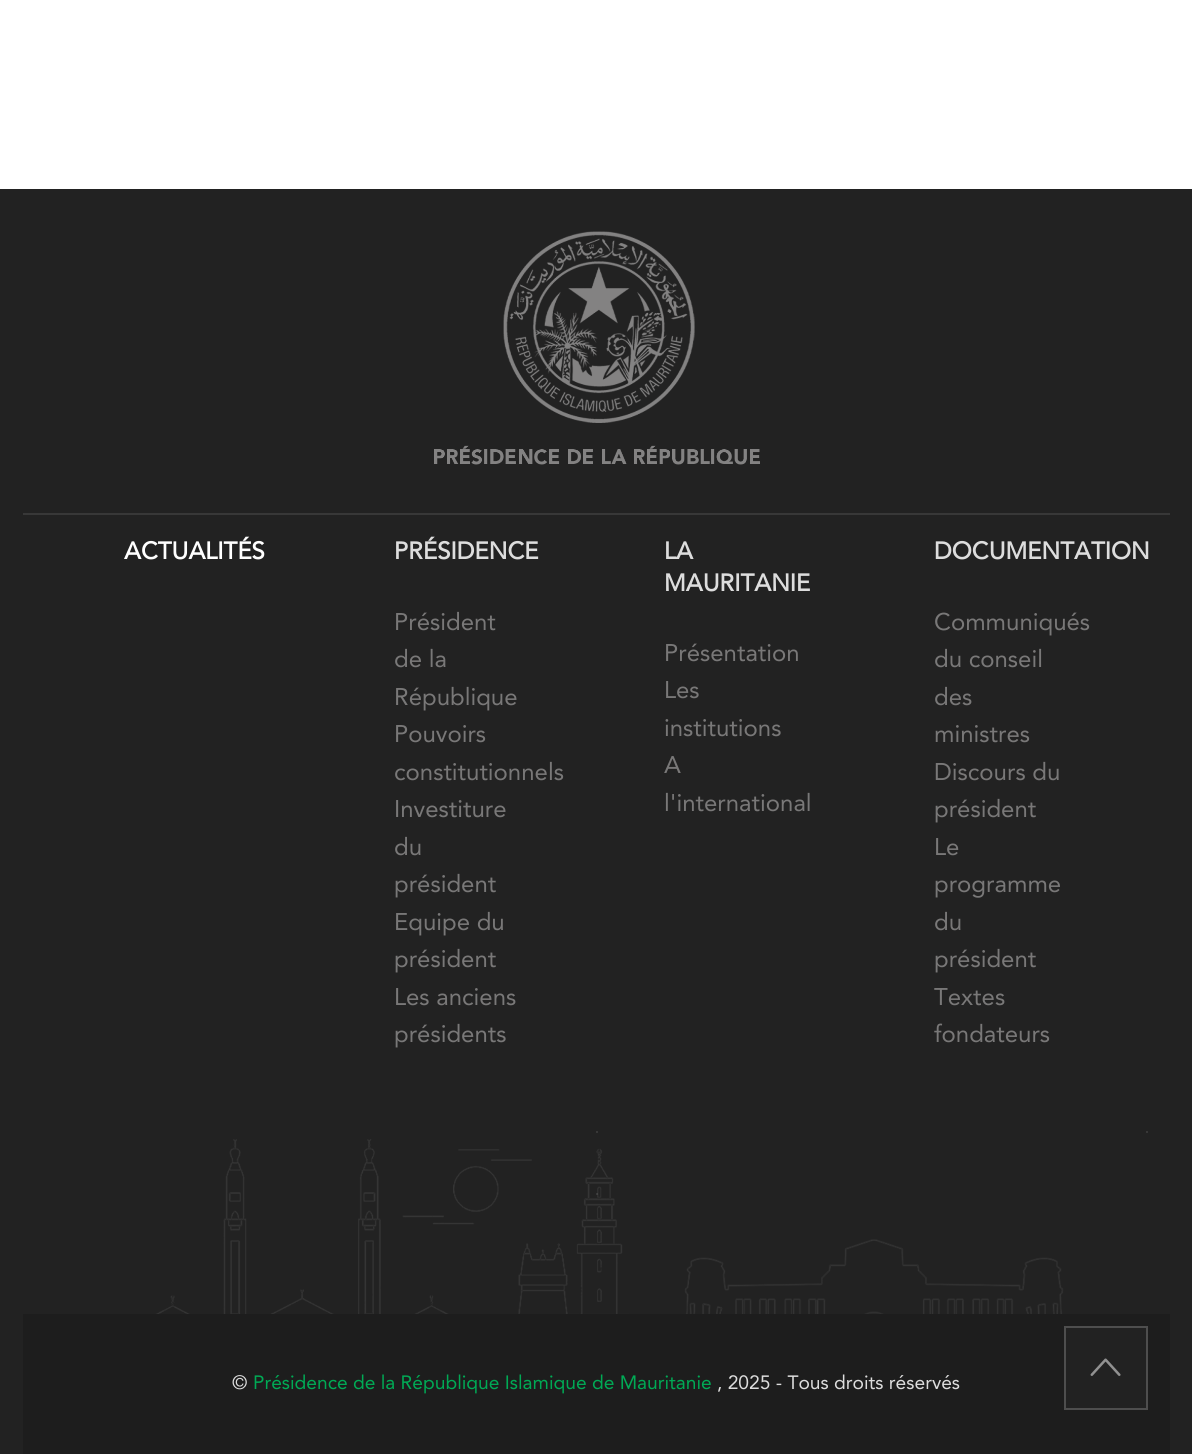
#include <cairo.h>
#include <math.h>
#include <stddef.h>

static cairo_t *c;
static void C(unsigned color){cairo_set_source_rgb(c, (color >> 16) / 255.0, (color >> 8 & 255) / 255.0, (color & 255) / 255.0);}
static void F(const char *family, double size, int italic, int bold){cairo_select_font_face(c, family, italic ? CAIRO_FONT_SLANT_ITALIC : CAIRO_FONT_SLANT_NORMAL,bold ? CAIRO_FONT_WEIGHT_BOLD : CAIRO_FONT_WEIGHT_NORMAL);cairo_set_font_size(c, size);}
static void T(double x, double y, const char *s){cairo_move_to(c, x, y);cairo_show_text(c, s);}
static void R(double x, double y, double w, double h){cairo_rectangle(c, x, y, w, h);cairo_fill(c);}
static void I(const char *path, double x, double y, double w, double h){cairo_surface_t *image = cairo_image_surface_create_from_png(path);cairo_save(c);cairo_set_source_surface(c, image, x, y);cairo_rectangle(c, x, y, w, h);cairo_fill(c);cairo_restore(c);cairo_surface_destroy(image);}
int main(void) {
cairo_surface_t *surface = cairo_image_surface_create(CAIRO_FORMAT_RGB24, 1192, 1454);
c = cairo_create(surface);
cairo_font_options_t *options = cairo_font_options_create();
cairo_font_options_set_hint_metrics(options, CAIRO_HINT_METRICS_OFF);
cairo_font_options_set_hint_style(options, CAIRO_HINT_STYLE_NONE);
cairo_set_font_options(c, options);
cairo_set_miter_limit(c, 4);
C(0x222222);
cairo_paint(c);
C(0xffffff);
R(0,0,1192,189);
I("1.png",120,1139,947,175);
C(0x383838);
R(23,513,1147,2);
I("2.png",434,231,326,234);
F("Avenir",24,0,1);
C(0xffffff);
T(124,559,"ACTUALITÉS");
C(0xdddddd);
T(394,559,"PRÉSIDENCE");
F("Avenir",24,0,0);
C(0x797878);
T(394,630,"Président");
T(394,667,"de la");
T(394,705,"République");
T(394,742,"Pouvoirs");
T(394,780,"constitutionnels");
T(394,817,"Investiture");
T(394,855,"du");
T(394,892,"président");
T(394,930,"Equipe du");
T(394,967,"président");
T(394,1005,"Les anciens");
T(394,1042,"présidents");
F("Avenir",24,0,1);
C(0xdddddd);
T(664,559,"LA");
T(664,591,"MAURITANIE");
F("Avenir",24,0,0);
C(0x797878);
T(664,661,"Présentation");
T(664,698,"Les");
T(664,736,"institutions");
T(664,773,"A");
T(664,811,"l'international");
F("Avenir",24,0,1);
C(0xdddddd);
T(934,559,"DOCUMENTATION");
F("Avenir",24,0,0);
C(0x797878);
T(934,630,"Communiqués");
T(934,667,"du conseil");
T(934,705,"des");
T(934,742,"ministres");
T(934,780,"Discours du");
T(934,817,"président");
T(934,855,"Le");
T(934,892,"programme");
T(934,930,"du");
T(934,967,"président");
T(934,1005,"Textes");
T(934,1042,"fondateurs");
C(0x383838);
R(596,1131,2,2);
R(1146,1131,2,2);
cairo_set_source_rgba(c,1,1,1,0.1);
R(596,1193,2,2);
C(0x1d1d1d);
R(23,1314,1147,140);
F("Avenir",19.2,0,0);
C(0xdddddd);
T(232,1389,"©");
C(0x00aa55);
T(253,1389,"Présidence de la République Islamique de Mauritanie");
C(0xdddddd);
T(717,1389,", 2025 - Tous droits réservés");
C(0x222222);
cairo_rectangle(c,1065,1327,82,82);
cairo_fill_preserve(c);
C(0x4e4e4e);
cairo_stroke(c);
I("3.png",1090,1358,31,18);
cairo_surface_write_to_png(surface, "o.png");
cairo_font_options_destroy(options);
cairo_destroy(c);
cairo_surface_destroy(surface);
return 0;
}
